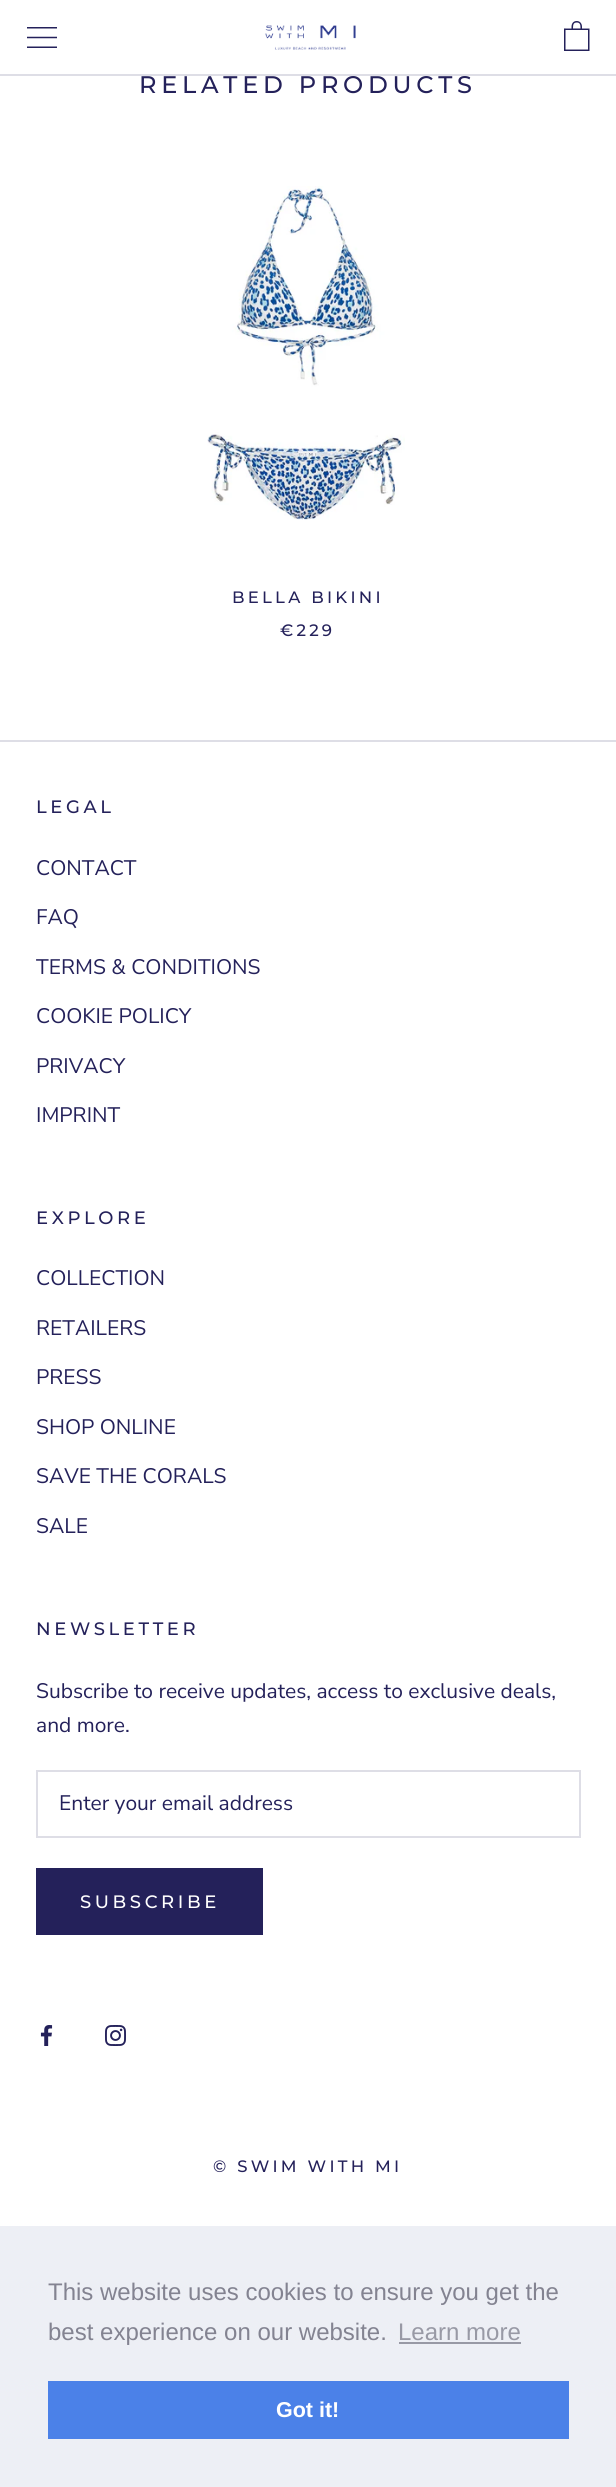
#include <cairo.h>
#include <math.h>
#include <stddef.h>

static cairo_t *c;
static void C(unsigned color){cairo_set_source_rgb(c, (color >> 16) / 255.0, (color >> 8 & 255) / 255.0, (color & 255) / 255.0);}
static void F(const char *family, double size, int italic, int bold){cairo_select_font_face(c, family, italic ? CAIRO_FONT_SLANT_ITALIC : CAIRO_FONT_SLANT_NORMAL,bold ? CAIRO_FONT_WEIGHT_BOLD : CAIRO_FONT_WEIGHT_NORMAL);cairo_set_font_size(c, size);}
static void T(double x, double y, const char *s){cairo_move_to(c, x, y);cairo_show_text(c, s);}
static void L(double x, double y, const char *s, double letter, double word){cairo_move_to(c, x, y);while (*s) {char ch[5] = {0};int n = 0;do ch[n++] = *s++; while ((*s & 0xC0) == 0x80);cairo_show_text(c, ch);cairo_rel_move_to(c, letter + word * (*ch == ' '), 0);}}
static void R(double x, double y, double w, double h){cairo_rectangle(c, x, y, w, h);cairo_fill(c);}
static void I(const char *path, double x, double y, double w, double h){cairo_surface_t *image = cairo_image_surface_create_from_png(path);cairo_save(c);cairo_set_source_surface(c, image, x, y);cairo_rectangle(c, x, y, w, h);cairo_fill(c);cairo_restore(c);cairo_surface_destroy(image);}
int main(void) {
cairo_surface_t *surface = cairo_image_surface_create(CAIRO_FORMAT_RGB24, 616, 2487);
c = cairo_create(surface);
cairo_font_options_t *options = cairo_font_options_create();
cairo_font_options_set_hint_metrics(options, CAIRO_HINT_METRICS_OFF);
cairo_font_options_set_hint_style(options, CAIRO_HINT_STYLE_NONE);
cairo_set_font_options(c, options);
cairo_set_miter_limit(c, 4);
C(0xffffff);
cairo_paint(c);
C(0xdedee6);
R(0,74,616,2);
I("1.png",27,27,30,21);
I("2.png",265,25,91,25);
I("3.png",564,21,26,30);
F("Montserrat Medium",24,0,0);
C(0x24215a);
L(139,93,"RELATED PRODUCTS",4.75,0);
I("4.png",207,186,198,334);
F("Montserrat Medium",16.5,0,0);
L(232,603,"BELLA BIKINI",3.25,0);
L(280,636,"€229",3.25,0);
C(0xdedee6);
R(0,740,616,2);
F("Montserrat Medium",18,0,0);
C(0x24215a);
L(36,813,"LEGAL",3.6,0);
F("Nunito Sans",21,0,0);
T(36,875,"CONTACT");
T(36,924,"FAQ");
T(36,974,"TERMS & CONDITIONS");
T(36,1023,"COOKIE POLICY");
T(36,1073,"PRIVACY");
T(36,1122,"IMPRINT");
F("Montserrat Medium",18,0,0);
L(36,1224,"EXPLORE",3.6,0);
F("Nunito Sans",21,0,0);
T(36,1285,"COLLECTION");
T(36,1335,"RETAILERS");
T(36,1384,"PRESS");
T(36,1434,"SHOP ONLINE");
T(36,1483,"SAVE THE CORALS");
T(36,1533,"SALE");
F("Montserrat Medium",18,0,0);
L(36,1635,"NEWSLETTER",3.6,0);
F("Nunito Sans",21,0,0);
T(36,1698,"Subscribe to receive updates, access to exclusive deals,");
T(36,1732,"and more.");
cairo_rectangle(c,37,1771,543,66);
C(0xdedee6);
cairo_stroke(c);
C(0x24215a);
T(59,1810,"Enter your email address");
cairo_rectangle(c,37,1869,225,65);
cairo_stroke(c);
R(38,1870,223,63);
F("Montserrat Medium",18,0,0);
C(0xffffff);
L(80,1908,"SUBSCRIBE",3.6,0);
I("5.png",40,2025,13,21);
I("6.png",105,2025,21,21);
F("Montserrat Medium",16.5,0,0);
C(0x24215a);
L(213,2172,"© SWIM WITH MI",3.25,0);
C(0xedeff5);
R(0,2226,616,261);
F("Liberation Sans",24,0,0);
C(0x838391);
T(48,2300,"This website uses cookies to ensure you get the");
T(48,2340,"best experience on our website.");
C(0x9899a5);
T(398,2340,"Learn more");
R(399,2342,122,2);
C(0x4b81e8);
R(48,2381,521,58);
F("Liberation Sans",21.5,0,1);
C(0xffffff);
T(276,2417,"Got it!");
cairo_surface_write_to_png(surface, "o.png");
cairo_font_options_destroy(options);
cairo_destroy(c);
cairo_surface_destroy(surface);
return 0;
}
